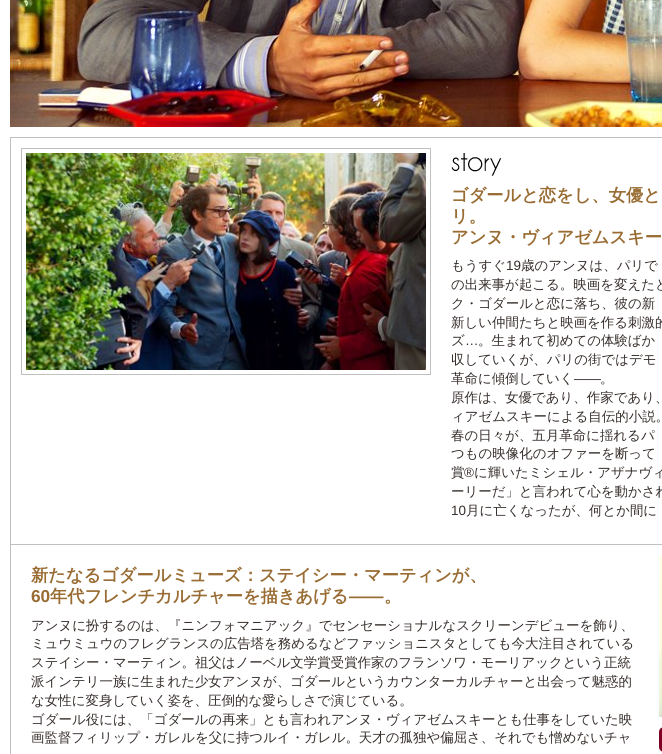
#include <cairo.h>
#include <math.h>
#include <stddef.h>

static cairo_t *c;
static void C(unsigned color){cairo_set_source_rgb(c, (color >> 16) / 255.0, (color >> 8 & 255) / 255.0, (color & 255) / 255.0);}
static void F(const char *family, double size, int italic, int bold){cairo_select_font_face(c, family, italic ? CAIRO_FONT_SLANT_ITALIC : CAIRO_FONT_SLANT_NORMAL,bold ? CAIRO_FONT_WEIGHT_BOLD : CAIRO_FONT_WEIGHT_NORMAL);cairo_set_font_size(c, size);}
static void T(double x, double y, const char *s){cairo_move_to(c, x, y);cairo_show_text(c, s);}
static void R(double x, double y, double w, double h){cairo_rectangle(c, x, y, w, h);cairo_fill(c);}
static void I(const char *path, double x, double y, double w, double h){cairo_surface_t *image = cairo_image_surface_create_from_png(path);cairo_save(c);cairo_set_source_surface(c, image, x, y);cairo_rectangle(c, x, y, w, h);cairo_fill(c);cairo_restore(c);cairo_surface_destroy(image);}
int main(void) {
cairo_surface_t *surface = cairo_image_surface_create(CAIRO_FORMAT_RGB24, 662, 754);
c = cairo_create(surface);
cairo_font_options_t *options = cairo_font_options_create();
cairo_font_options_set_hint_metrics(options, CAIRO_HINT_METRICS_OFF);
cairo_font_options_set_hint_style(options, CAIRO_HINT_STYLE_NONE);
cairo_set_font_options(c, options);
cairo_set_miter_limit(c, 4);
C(0xffffff);
cairo_paint(c);
I("1.png",10,0,652,127);
cairo_rectangle(c,10.5,137.5,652,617);
C(0xc0c0c0);
cairo_set_line_width(c,1);
cairo_stroke(c);
cairo_rectangle(c,21.5,148.5,409,226);
cairo_stroke(c);
I("2.png",26,153,400,217);
I("3.png",451,153,51,23);
F("WenQuanYi Zen Hei",17.25,0,1);
C(0x996c33);
T(451,201,"ゴダールと恋をし、女優と");
T(451,222,"リ。");
T(451,243,"アンヌ・ヴィアゼムスキー");
F("WenQuanYi Zen Hei Medium",13.45,0,0);
C(0x362e2b);
T(451,270,"もうすぐ");
F("Liberation Sans",13.45,0,0);
T(506,270,"19");
F("WenQuanYi Zen Hei Medium",13.45,0,0);
T(521,270,"歳のアンヌは、パリで");
T(451,289,"の出来事が起こる。映画を変えたと");
T(451,308,"ク・ゴダールと恋に落ち、彼の新");
T(451,327,"新しい仲間たちと映画を作る刺激的");
T(451,345,"ズ");
F("Liberation Sans",13.45,0,0);
T(465,345,"…");
F("WenQuanYi Zen Hei Medium",13.45,0,0);
T(478,345,"。生まれて初めての体験ばか");
T(451,364,"収していくが、パリの街ではデモ");
T(451,383,"革命に傾倒していく");
F("Liberation Sans",13.45,0,0);
T(574,383,"――");
F("WenQuanYi Zen Hei Medium",13.45,0,0);
T(600,383,"。");
T(451,402,"原作は、女優であり、作家であり、");
T(451,421,"ィアゼムスキーによる自伝的小説。");
T(451,440,"春の日々が、五月革命に揺れるパ");
T(451,458,"つもの映像化のオファーを断って");
T(451,477,"賞");
F("Liberation Sans",13.45,0,0);
T(464,477,"®");
F("WenQuanYi Zen Hei Medium",13.45,0,0);
T(474,477,"に輝いたミシェル・アザナヴィ");
T(451,496,"ーリーだ」と言われて心を動かされ");
F("Liberation Sans",13.45,0,0);
T(451,515,"10");
F("WenQuanYi Zen Hei Medium",13.45,0,0);
T(466,515,"月に亡くなったが、何とか間に");
C(0xc0c0c0);
R(11,544,651,1);
F("WenQuanYi Zen Hei",17.25,0,1);
C(0x996c33);
T(31,581,"新たなるゴダールミューズ：ステイシー・マーティンが、");
F("Liberation Sans",17.25,0,1);
T(31,602,"60");
F("WenQuanYi Zen Hei",17.25,0,1);
T(50,602,"年代フレンチカルチャーを描きあげる");
F("Liberation Sans",17.25,0,1);
T(349,602,"――");
F("WenQuanYi Zen Hei",17.25,0,1);
T(384,602,"。");
F("WenQuanYi Zen Hei Medium",13.45,0,0);
C(0x362e2b);
T(31,630,"アンヌに扮するのは、『ニンフォマニアック』でセンセーショナルなスクリーンデビューを飾り、");
T(31,648,"ミュウミュウのフレグランスの広告塔を務めるなどファッショニスタとしても今大注目されている");
T(31,667,"ステイシー・マーティン。祖父はノーベル文学賞受賞作家のフランソワ・モーリアックという正統");
T(31,686,"派インテリ一族に生まれた少女アンヌが、ゴダールというカウンターカルチャーと出会って魅惑的");
T(31,705,"な女性に変身していく姿を、圧倒的な愛らしさで演じている。");
T(31,724,"ゴダール役には、「ゴダールの再来」とも言われアンヌ・ヴィアゼムスキーとも仕事をしていた映");
T(31,742,"画監督フィリップ・ガレルを父に持つルイ・ガレル。天才の孤独や偏屈さ、それでも憎めないチャ");
I("4.png",659,555,3,162);
I("5.png",659,727,3,25);
cairo_surface_write_to_png(surface, "o.png");
cairo_font_options_destroy(options);
cairo_destroy(c);
cairo_surface_destroy(surface);
return 0;
}
